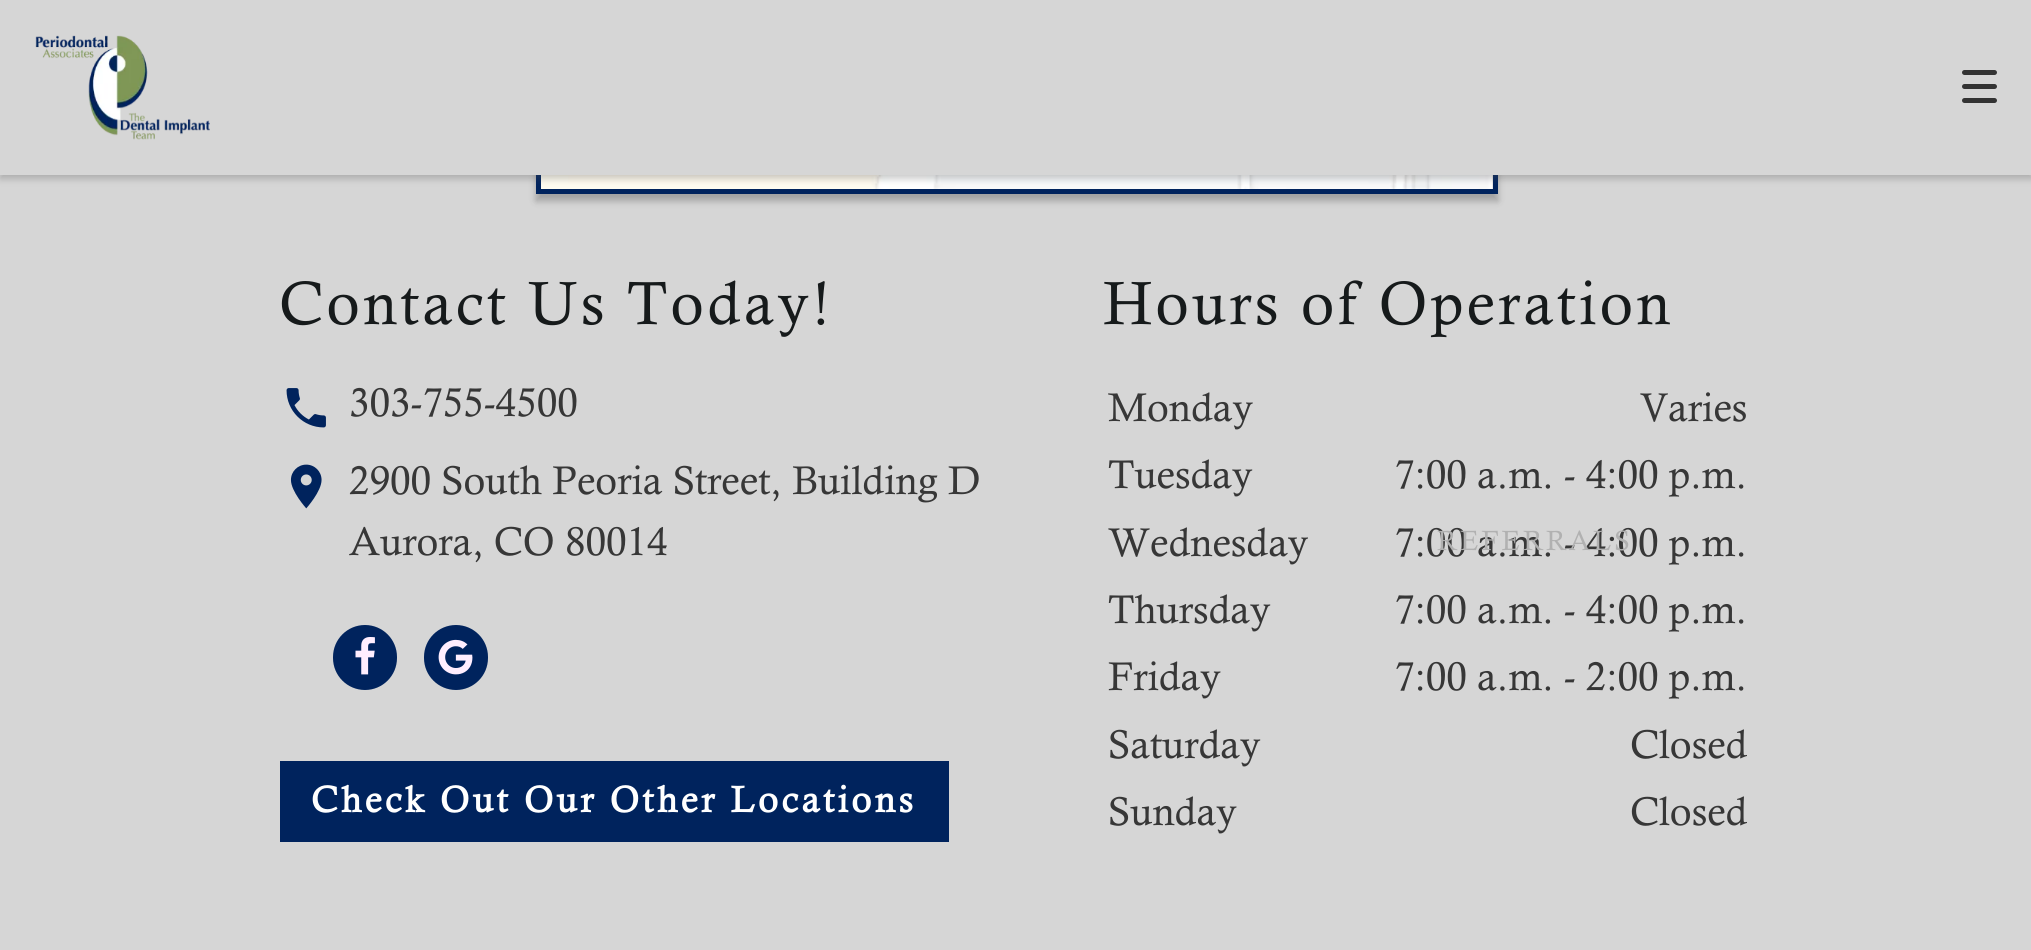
#include <cairo.h>
#include <math.h>
#include <stddef.h>

static cairo_t *c;
static void C(unsigned color){cairo_set_source_rgb(c, (color >> 16) / 255.0, (color >> 8 & 255) / 255.0, (color & 255) / 255.0);}
static void F(const char *family, double size, int italic, int bold){cairo_select_font_face(c, family, italic ? CAIRO_FONT_SLANT_ITALIC : CAIRO_FONT_SLANT_NORMAL,bold ? CAIRO_FONT_WEIGHT_BOLD : CAIRO_FONT_WEIGHT_NORMAL);cairo_set_font_size(c, size);}
static void T(double x, double y, const char *s){cairo_move_to(c, x, y);cairo_show_text(c, s);}
static void L(double x, double y, const char *s, double letter, double word){cairo_move_to(c, x, y);while (*s) {char ch[5] = {0};int n = 0;do ch[n++] = *s++; while ((*s & 0xC0) == 0x80);cairo_show_text(c, ch);cairo_rel_move_to(c, letter + word * (*ch == ' '), 0);}}
static void R(double x, double y, double w, double h){cairo_rectangle(c, x, y, w, h);cairo_fill(c);}
static void Q(double x, double y, double w, double h, double r){cairo_new_sub_path(c);cairo_arc(c, x + w - r, y + h - r, r, 0, M_PI / 2);cairo_arc(c, x + r, y + h - r, r, M_PI / 2, M_PI);cairo_arc(c, x + r, y + r, r, M_PI, 1.5 * M_PI);cairo_arc(c, x + w - r, y + r, r, 1.5 * M_PI, 2 * M_PI);cairo_close_path(c);}
static void S(double x, double y, double w, double h, double r, double blur, double alpha){cairo_push_group_with_content(c, CAIRO_CONTENT_ALPHA);cairo_set_operator(c, CAIRO_OPERATOR_SOURCE);for (int i = 15; i >= -15 && fmin(w, h) + blur * i / 3 > 0; i -= 2) {double e = blur * i / 6;cairo_set_source_rgba(c, 0, 0, 0, alpha * erfc((i - 1) / 8.5) / 2);Q(x - e, y - e, w + 2 * e, h + 2 * e, fmax(0, fmin(r + e + blur * .6, fmin(w, h) / 2 + e)));cairo_fill(c);}cairo_pattern_t *soft = cairo_pop_group(c);cairo_mask(c, soft);cairo_pattern_destroy(soft);}
static void I(const char *path, double x, double y, double w, double h){cairo_surface_t *image = cairo_image_surface_create_from_png(path);cairo_save(c);cairo_set_source_surface(c, image, x, y);cairo_rectangle(c, x, y, w, h);cairo_fill(c);cairo_restore(c);cairo_surface_destroy(image);}
int main(void) {
cairo_surface_t *surface = cairo_image_surface_create(CAIRO_FORMAT_RGB24, 2031, 950);
c = cairo_create(surface);
cairo_font_options_t *options = cairo_font_options_create();
cairo_font_options_set_hint_metrics(options, CAIRO_HINT_METRICS_OFF);
cairo_font_options_set_hint_style(options, CAIRO_HINT_STYLE_NONE);
cairo_set_font_options(c, options);
cairo_set_miter_limit(c, 4);
C(0xd6d6d6);
cairo_paint(c);
C(0x000000);
S(536,-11,962,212,0,3.5,.25);
I("1.png",541,175,952,14);
cairo_rectangle(c,538.5,-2.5,957,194);
C(0x00235d);
cairo_set_line_width(c,5);
cairo_stroke(c);
F("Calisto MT",61.25,0,0);
C(0x161a1b);
L(279,324,"Contact Us Today!",3.5,0);
I("2.png",286,388,40,40);
F("Calisto MT",40.25,0,0);
C(0x373737);
T(349,416,"303-755-4500");
I("3.png",290,464,32,45);
T(349,494,"2900 South Peoria Street, Building D");
T(349,555,"Aurora, CO 80014");
C(0x00235d);
Q(333,625,64,65,32);
cairo_fill(c);
I("4.png",355,637,20,38);
Q(424,625,64,65,32);
cairo_fill(c);
I("5.png",438,639,35,36);
R(280,761,669,81);
F("Calisto MT",36.75,0,1);
C(0xffffff);
L(311,812,"Check Out Our Other Locations",3.5,0);
F("Calisto MT",61.25,0,0);
C(0x161a1b);
L(1103,324,"Hours of Operation",3.5,0);
F("Calisto MT",40.25,0,0);
C(0x373737);
T(1108,421,"Monday");
T(1640,421,"Varies");
T(1108,488,"Tuesday");
T(1394,488,"7:00 a.m. - 4:00 p.m.");
T(1108,556,"Wednesday");
T(1394,556,"7:00 a.m. - 4:00 p.m.");
T(1108,623,"Thursday");
T(1394,623,"7:00 a.m. - 4:00 p.m.");
T(1108,690,"Friday");
T(1394,690,"7:00 a.m. - 2:00 p.m.");
T(1108,758,"Saturday");
T(1630,758,"Closed");
T(1108,825,"Sunday");
T(1630,825,"Closed");
C(0x505050);
S(0,4,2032,175,0,3.5,.3);
C(0xd6d6d6);
R(0,0,2031,175);
I("6.png",35,35,175,105);
C(0x333333);
Q(1962,70,35,5,2.5);
cairo_fill(c);
Q(1962,84,35,5,2.5);
cairo_fill(c);
Q(1962,98,35,5,2.5);
cairo_fill(c);
F("Calisto MT",28,0,0);
C(0xb1b1b1);
L(1437,550,"REFERRALS",2.75,0);
cairo_surface_write_to_png(surface, "o.png");
cairo_font_options_destroy(options);
cairo_destroy(c);
cairo_surface_destroy(surface);
return 0;
}
